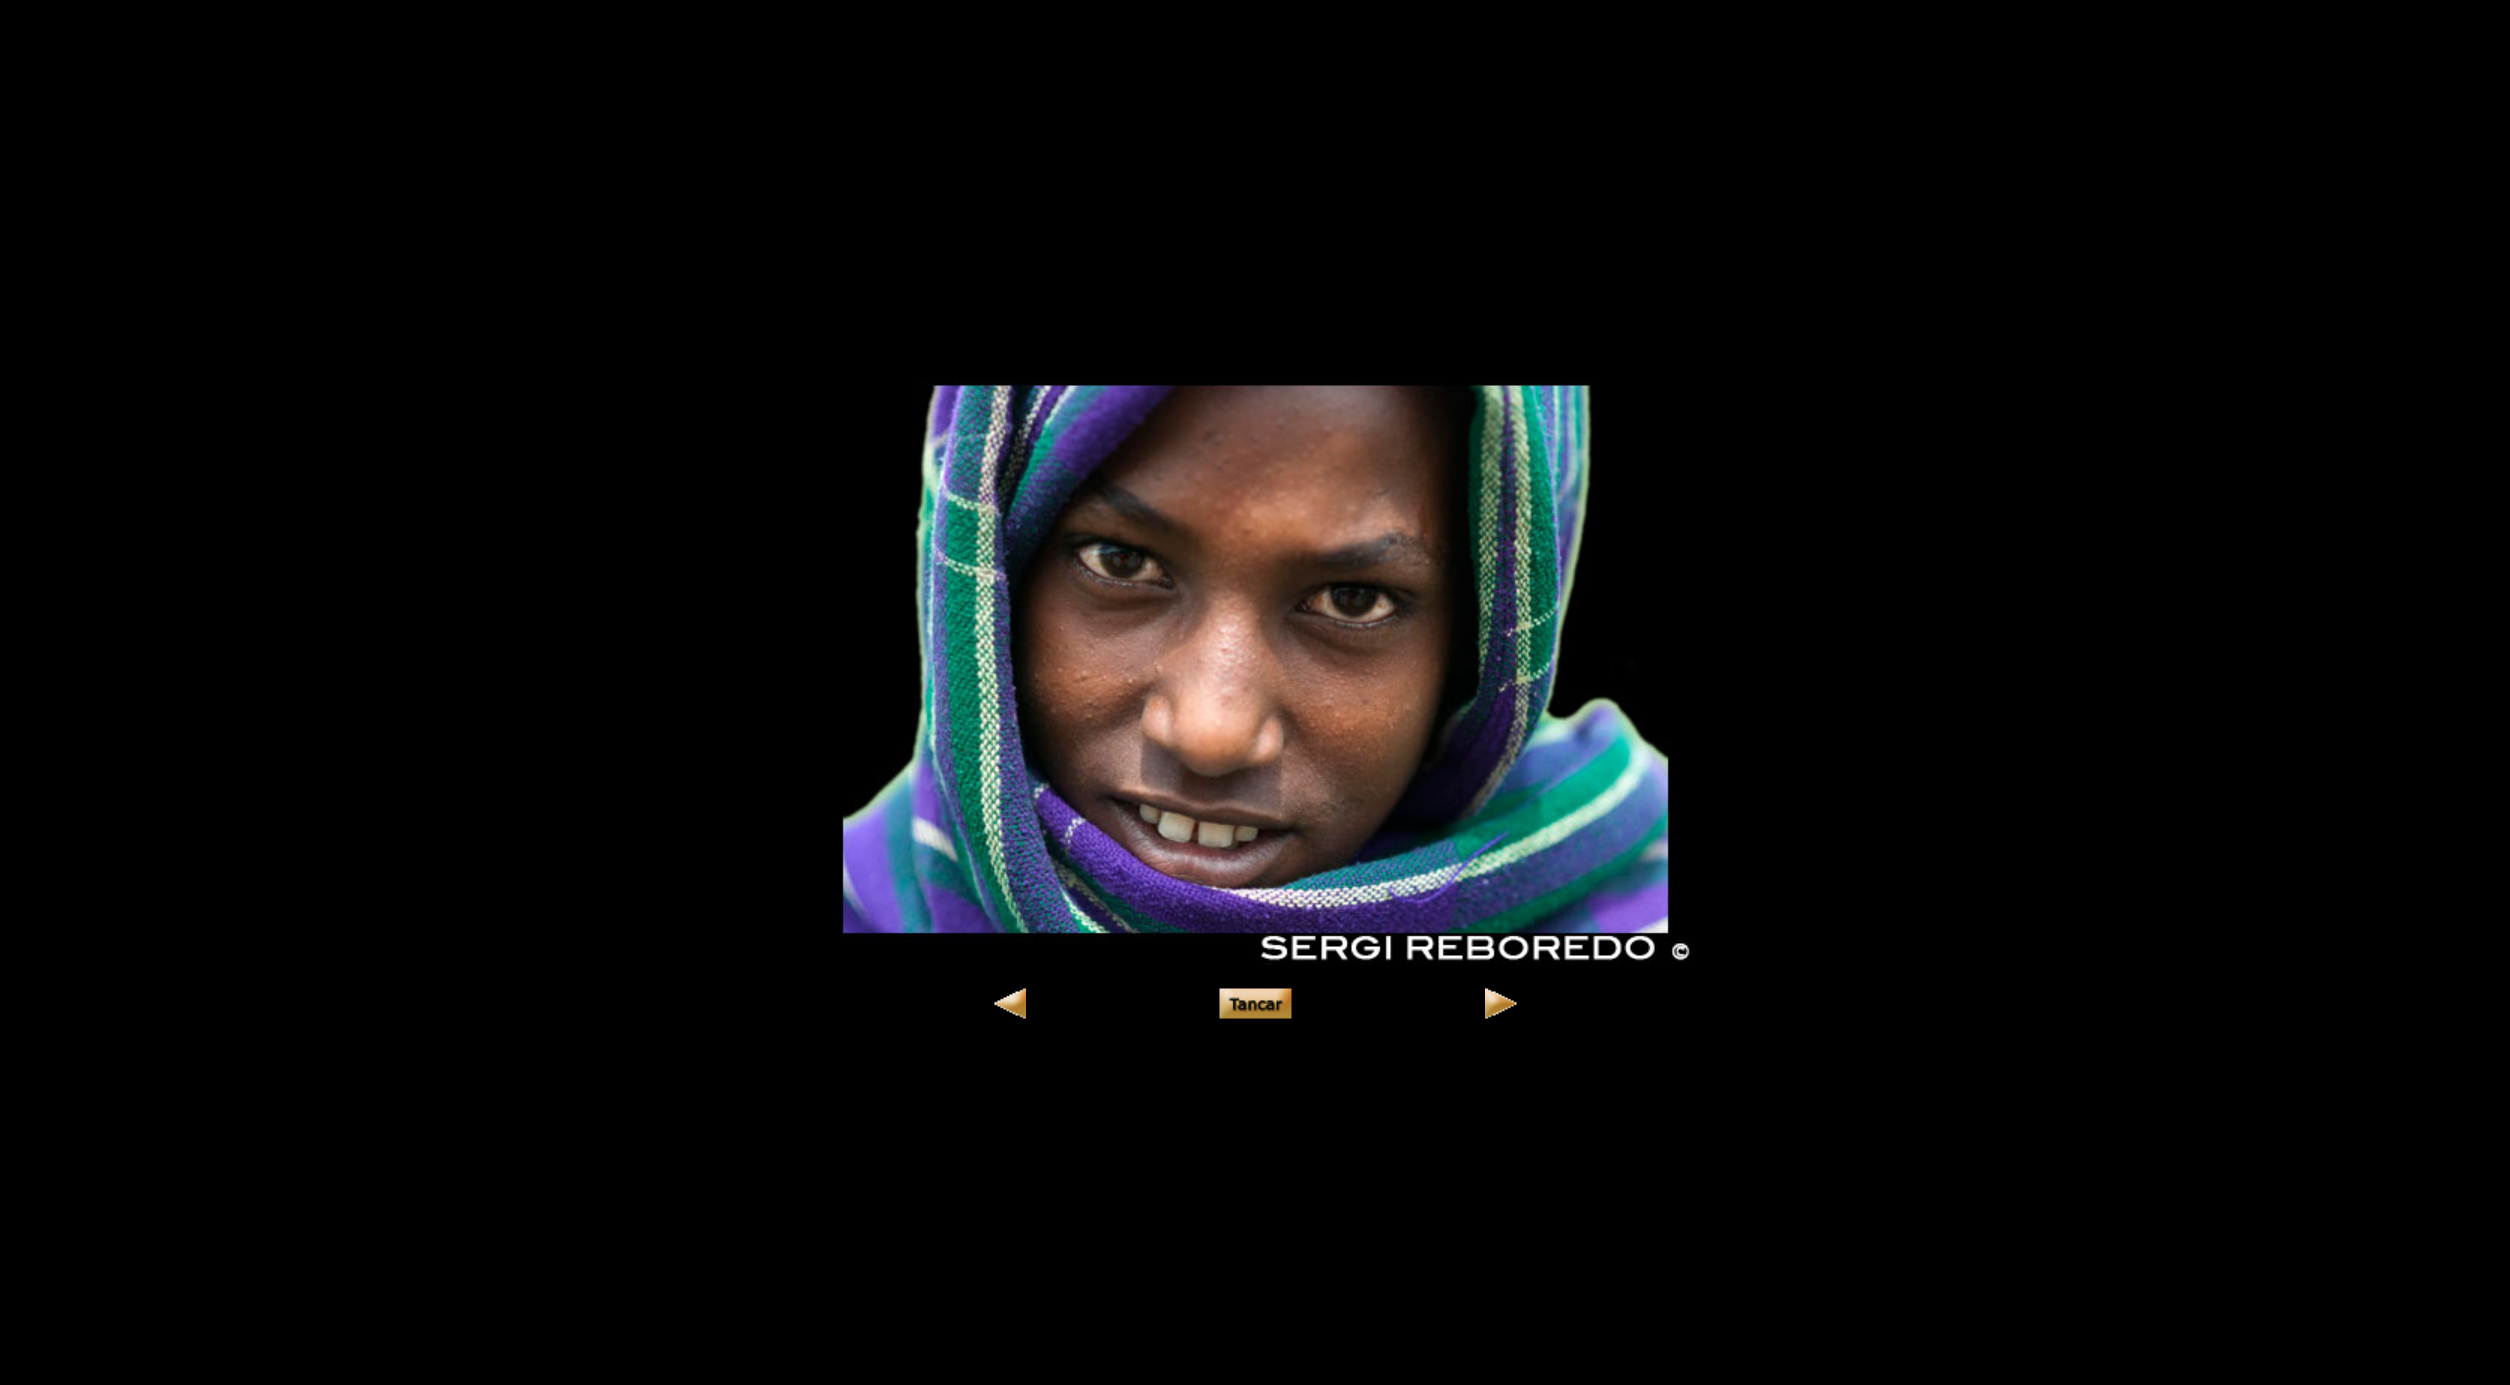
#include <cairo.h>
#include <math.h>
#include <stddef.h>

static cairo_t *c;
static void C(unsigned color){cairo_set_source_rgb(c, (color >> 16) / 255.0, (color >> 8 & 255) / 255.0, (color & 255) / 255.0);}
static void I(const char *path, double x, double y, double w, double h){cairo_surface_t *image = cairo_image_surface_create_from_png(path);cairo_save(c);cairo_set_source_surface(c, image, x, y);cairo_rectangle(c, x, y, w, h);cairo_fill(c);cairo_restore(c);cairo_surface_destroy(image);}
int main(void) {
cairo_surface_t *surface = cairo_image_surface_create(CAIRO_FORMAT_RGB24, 2510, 1385);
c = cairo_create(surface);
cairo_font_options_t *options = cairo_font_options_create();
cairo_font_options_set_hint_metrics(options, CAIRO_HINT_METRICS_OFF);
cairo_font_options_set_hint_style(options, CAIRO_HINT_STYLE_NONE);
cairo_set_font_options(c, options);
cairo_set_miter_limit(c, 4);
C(0x000000);
cairo_paint(c);
I("1.png",841,379,851,586);
I("2.png",994,988,32,31);
I("3.png",1219,988,73,31);
I("4.png",1485,988,32,31);
cairo_surface_write_to_png(surface, "o.png");
cairo_font_options_destroy(options);
cairo_destroy(c);
cairo_surface_destroy(surface);
return 0;
}
